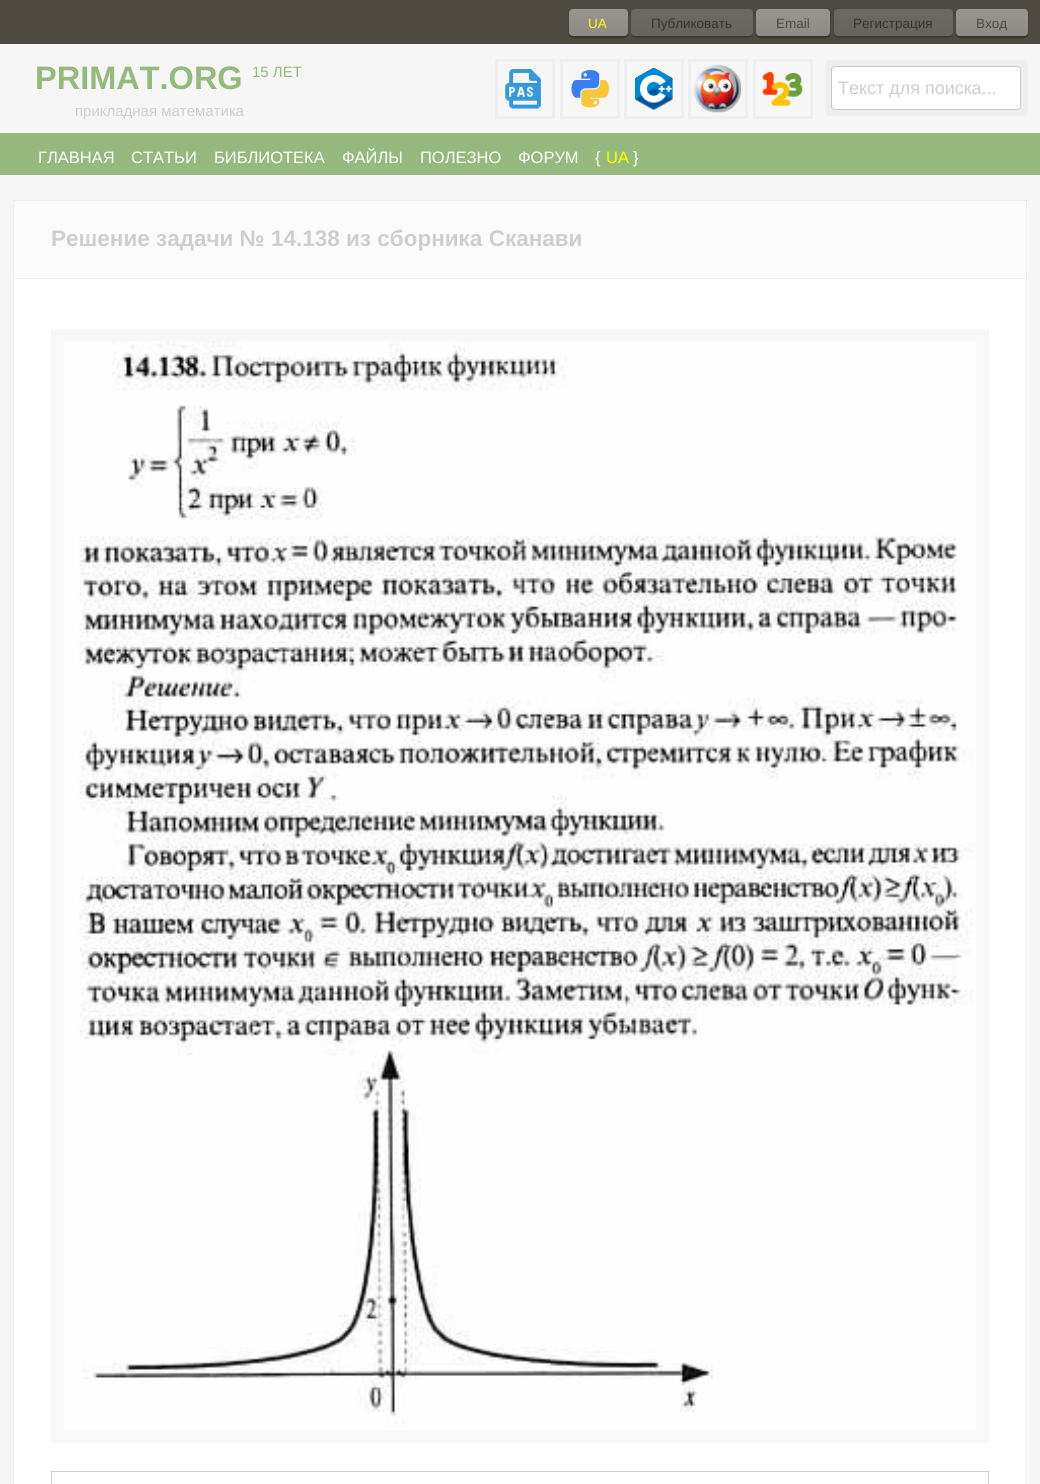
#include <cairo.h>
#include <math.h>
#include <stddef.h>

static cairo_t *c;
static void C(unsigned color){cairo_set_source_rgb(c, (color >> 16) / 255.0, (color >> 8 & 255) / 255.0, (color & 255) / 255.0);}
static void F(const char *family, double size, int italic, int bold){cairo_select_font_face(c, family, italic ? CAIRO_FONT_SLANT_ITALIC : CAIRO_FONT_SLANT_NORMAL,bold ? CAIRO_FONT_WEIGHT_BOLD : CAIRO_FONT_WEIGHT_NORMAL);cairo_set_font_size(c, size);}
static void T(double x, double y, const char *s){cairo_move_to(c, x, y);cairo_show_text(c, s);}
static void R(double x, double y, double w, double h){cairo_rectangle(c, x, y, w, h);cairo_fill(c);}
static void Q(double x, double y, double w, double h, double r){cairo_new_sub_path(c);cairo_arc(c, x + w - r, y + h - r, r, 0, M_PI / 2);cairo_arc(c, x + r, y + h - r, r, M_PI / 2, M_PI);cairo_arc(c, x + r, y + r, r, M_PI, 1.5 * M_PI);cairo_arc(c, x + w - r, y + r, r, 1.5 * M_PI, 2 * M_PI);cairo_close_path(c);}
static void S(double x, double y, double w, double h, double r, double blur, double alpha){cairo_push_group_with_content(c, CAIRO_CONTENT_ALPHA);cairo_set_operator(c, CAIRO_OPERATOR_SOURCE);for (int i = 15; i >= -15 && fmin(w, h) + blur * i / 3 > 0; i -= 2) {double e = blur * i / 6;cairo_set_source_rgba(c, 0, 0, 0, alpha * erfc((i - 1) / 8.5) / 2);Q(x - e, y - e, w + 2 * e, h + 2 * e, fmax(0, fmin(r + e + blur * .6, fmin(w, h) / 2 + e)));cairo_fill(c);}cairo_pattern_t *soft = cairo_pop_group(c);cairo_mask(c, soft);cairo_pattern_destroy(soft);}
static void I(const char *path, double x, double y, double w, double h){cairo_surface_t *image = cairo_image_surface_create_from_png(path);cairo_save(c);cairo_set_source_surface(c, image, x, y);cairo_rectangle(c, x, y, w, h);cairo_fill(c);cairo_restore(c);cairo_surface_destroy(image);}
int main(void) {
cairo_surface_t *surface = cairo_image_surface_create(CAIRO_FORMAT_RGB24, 1040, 1484);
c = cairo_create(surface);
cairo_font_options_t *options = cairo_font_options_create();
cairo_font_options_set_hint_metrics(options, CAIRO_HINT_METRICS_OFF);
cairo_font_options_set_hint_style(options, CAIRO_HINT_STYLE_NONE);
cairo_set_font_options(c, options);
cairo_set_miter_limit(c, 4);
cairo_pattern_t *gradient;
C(0xf6f6f6);
cairo_paint(c);
C(0x4e4941);
R(0,0,1040,44);
C(0x000000);
S(569,10,59,28,4,.5,.3);
C(0x4d473f);
Q(569,9,59,27,4);
cairo_fill(c);
gradient = cairo_pattern_create_linear(598,37,598,-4.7);
cairo_pattern_add_color_stop_rgba(gradient,0,0.8,0.8,0.8,.5);
cairo_pattern_add_color_stop_rgba(gradient,1,0.957,0.957,0.957,.5);
cairo_set_source(c,gradient);
cairo_pattern_destroy(gradient);
Q(569,9,59,27,4);
cairo_fill(c);
F("Liberation Sans",13.5,0,0);
C(0xffff00);
T(588,28,"UA");
C(0x000000);
S(631,10,122,28,4,.5,.2);
C(0x4d4941);
Q(631,9,122,27,4);
cairo_fill(c);
gradient = cairo_pattern_create_linear(692,37,692,-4.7);
cairo_pattern_add_color_stop_rgba(gradient,0,0.8,0.8,0.8,.2);
cairo_pattern_add_color_stop_rgba(gradient,1,0.957,0.957,0.957,.2);
cairo_set_source(c,gradient);
cairo_pattern_destroy(gradient);
Q(631,9,122,27,4);
cairo_fill(c);
C(0x39352d);
T(651,28,"Публиковать");
C(0x000000);
S(756,10,74,28,4,.5,.3);
C(0x4d473f);
Q(756,9,74,27,4);
cairo_fill(c);
gradient = cairo_pattern_create_linear(793,37,793,-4.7);
cairo_pattern_add_color_stop_rgba(gradient,0,0.8,0.8,0.8,.5);
cairo_pattern_add_color_stop_rgba(gradient,1,0.957,0.957,0.957,.5);
cairo_set_source(c,gradient);
cairo_pattern_destroy(gradient);
Q(756,9,74,27,4);
cairo_fill(c);
C(0x4e4940);
T(776,28,"Email");
C(0x000000);
S(834,10,119,28,4,.5,.2);
C(0x4d4941);
Q(834,9,119,27,4);
cairo_fill(c);
gradient = cairo_pattern_create_linear(893,37,893,-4.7);
cairo_pattern_add_color_stop_rgba(gradient,0,0.8,0.8,0.8,.2);
cairo_pattern_add_color_stop_rgba(gradient,1,0.957,0.957,0.957,.2);
cairo_set_source(c,gradient);
cairo_pattern_destroy(gradient);
Q(834,9,119,27,4);
cairo_fill(c);
C(0x39352d);
T(853,28,"Регистрация");
C(0x000000);
S(956,10,72,28,4,.5,.3);
C(0x4d473f);
Q(956,9,72,27,4);
cairo_fill(c);
gradient = cairo_pattern_create_linear(992,37,992,-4.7);
cairo_pattern_add_color_stop_rgba(gradient,0,0.8,0.8,0.8,.5);
cairo_pattern_add_color_stop_rgba(gradient,1,0.957,0.957,0.957,.5);
cairo_set_source(c,gradient);
cairo_pattern_destroy(gradient);
Q(956,9,72,27,4);
cairo_fill(c);
C(0x4e4940);
T(976,28,"Вход");
F("Liberation Sans",32.5,0,1);
C(0x96b97d);
T(35,89,"PRIMAT.ORG");
F("Liberation Sans",15,0,0);
T(252,77,"15 ЛЕТ");
C(0xcecece);
T(75,116,"прикладная математика");
cairo_rectangle(c,496.5,60.5,57,57);
C(0xeeeeee);
cairo_set_line_width(c,3);
cairo_stroke(c);
cairo_rectangle(c,561.5,60.5,57,57);
cairo_stroke(c);
cairo_rectangle(c,625.5,60.5,57,57);
cairo_stroke(c);
cairo_rectangle(c,689.5,60.5,57,57);
cairo_stroke(c);
cairo_rectangle(c,754.5,60.5,57,57);
cairo_stroke(c);
I("1.png",505,69,36,40);
I("2.png",571,69,39,39);
I("3.png",635,68,38,42);
I("4.png",694,65,48,48);
I("5.png",762,71,41,35);
C(0xeeefed);
Q(825,60,203,56,4);
cairo_fill(c);
C(0xffffff);
Q(831.5,66.5,189,43,3.5);
cairo_fill_preserve(c);
C(0xc8c8c8);
cairo_set_line_width(c,1);
cairo_stroke(c);
F("Liberation Sans",18,0,0);
C(0xcecece);
T(838,94,"Текст для поиска...");
C(0x96b97d);
R(0,133,1040,42);
F("Liberation Sans",16.5,0,0);
C(0xffffff);
T(38,163,"ГЛАВНАЯ");
T(131,163,"СТАТЬИ");
T(214,163,"БИБЛИОТЕКА");
T(342,163,"ФАЙЛЫ");
T(420,163,"ПОЛЕЗНО");
T(518,163,"ФОРУМ");
T(595,163,"{");
C(0xffff00);
T(606,163,"UA");
C(0xffffff);
T(633,163,"}");
R(14,201,1014,1283);
C(0xefefef);
R(13,200,1015,1);
R(1026,200,1,1284);
R(13,200,1,1284);
C(0xfbfbfb);
R(14,201,1012,77);
C(0xefefef);
R(14,278,1012,1);
F("Liberation Sans",22.5,0,1);
C(0xcecece);
T(51,246,"Решение задачи № 14.138 из сборника Сканави");
C(0xf8f8f8);
R(51,329,938,1114);
I("6.png",64,341,912,1089);
cairo_rectangle(c,51.5,1471.5,937,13);
C(0xcecece);
cairo_stroke(c);
cairo_surface_write_to_png(surface, "o.png");
cairo_font_options_destroy(options);
cairo_destroy(c);
cairo_surface_destroy(surface);
return 0;
}
